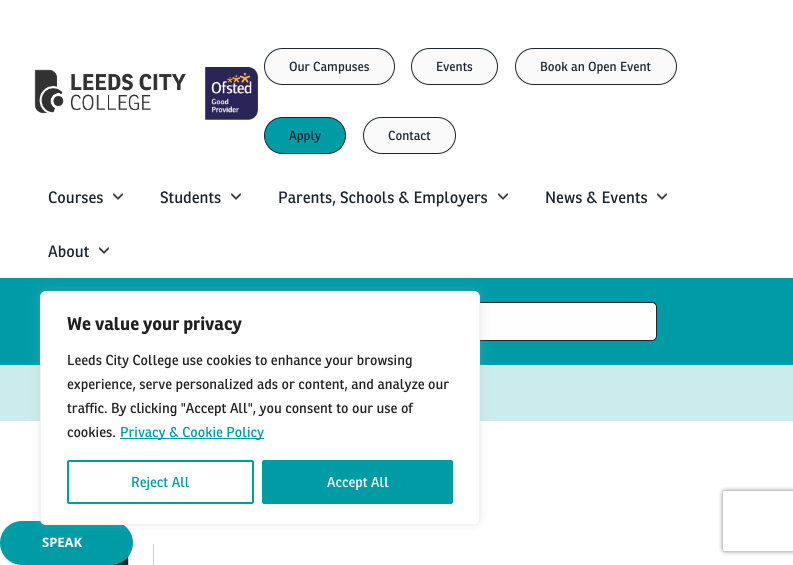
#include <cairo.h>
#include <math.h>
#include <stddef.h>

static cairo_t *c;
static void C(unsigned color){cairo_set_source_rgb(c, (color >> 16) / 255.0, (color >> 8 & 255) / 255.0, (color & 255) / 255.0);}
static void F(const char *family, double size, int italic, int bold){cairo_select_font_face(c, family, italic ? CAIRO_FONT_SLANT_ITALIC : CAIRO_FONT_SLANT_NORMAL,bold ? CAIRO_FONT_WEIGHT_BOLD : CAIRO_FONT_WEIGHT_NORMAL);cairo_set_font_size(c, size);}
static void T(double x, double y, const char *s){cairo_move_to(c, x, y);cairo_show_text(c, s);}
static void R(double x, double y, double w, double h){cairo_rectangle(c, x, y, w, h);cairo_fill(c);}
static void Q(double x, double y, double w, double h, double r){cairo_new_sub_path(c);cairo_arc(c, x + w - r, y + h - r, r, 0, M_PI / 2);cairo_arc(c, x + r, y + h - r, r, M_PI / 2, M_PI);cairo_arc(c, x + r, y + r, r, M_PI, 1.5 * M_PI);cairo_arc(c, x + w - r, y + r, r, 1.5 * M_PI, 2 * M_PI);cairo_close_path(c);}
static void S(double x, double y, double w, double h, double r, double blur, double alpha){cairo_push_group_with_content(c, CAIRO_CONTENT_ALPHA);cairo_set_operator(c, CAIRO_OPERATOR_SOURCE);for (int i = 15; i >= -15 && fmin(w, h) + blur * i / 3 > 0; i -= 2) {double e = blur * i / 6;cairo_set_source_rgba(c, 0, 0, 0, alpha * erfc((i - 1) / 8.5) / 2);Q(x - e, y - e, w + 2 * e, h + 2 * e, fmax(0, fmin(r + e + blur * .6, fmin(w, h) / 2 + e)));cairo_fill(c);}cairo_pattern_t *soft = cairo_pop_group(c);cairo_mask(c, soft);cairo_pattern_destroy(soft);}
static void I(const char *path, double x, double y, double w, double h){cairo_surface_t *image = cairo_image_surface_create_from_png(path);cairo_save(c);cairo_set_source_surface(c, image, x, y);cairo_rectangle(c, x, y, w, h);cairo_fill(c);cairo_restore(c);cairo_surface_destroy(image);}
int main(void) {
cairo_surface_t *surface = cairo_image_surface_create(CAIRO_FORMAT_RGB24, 793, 565);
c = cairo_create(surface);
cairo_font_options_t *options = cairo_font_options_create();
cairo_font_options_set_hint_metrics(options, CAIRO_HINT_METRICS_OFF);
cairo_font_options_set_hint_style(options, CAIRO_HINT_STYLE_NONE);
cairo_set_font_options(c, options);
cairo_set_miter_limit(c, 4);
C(0xffffff);
cairo_paint(c);
I("1.png",34,69,152,45);
I("2.png",205,67,53,53);
C(0xfafafa);
Q(264.5,48.5,130,36,18);
cairo_fill_preserve(c);
C(0x1d252c);
cairo_set_line_width(c,1);
cairo_stroke(c);
F("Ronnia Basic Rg",12.75,0,0);
T(289,71,"Our Campuses");
C(0xfafafa);
Q(411.5,48.5,86,36,18);
cairo_fill_preserve(c);
C(0x1d252c);
cairo_stroke(c);
T(436,71,"Events");
C(0xfafafa);
Q(515.5,48.5,161,36,18);
cairo_fill_preserve(c);
C(0x1d252c);
cairo_stroke(c);
T(540,71,"Book an Open Event");
C(0x009ca6);
Q(264.5,117.5,81,36,18);
cairo_fill_preserve(c);
C(0x1d252c);
cairo_stroke(c);
T(289,140,"Apply");
C(0xfafafa);
Q(363.5,117.5,92,36,18);
cairo_fill_preserve(c);
C(0x1d252c);
cairo_stroke(c);
T(388,140,"Contact");
F("Ronnia Basic Rg",16,0,0);
T(48,203,"Courses");
I("3.png",113,193,10,7);
T(160,203,"Students");
I("3.png",231,193,10,7);
T(278,203,"Parents, Schools & Employers");
I("3.png",498,193,10,7);
T(545,203,"News & Events");
I("3.png",657,193,10,7);
T(48,257,"About");
I("3.png",99,247,10,7);
C(0x009ca6);
R(0,278,793,87);
C(0xfefefe);
Q(136.5,302.5,520,38,4.5);
cairo_fill_preserve(c);
C(0x1d252c);
cairo_stroke(c);
C(0xccebed);
R(0,365,793,56);
cairo_rectangle(c,32.5,544.5,96,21);
C(0xd2d3d5);
cairo_stroke(c);
C(0x1d252c);
R(112,557,16,8);
C(0x009ca6);
Q(0,521,133,44,22);
cairo_fill(c);
C(0xacabab);
S(40,290,440,234,6,5,.3);
C(0xffffff);
Q(40.5,291.5,439,233,5.5);
cairo_fill_preserve(c);
C(0xf4f4f4);
cairo_stroke(c);
F("Ronnia Basic Rg",18,0,1);
C(0x212121);
T(67,330,"We value your privacy");
F("Ronnia Basic Rg",14,0,0);
T(67,365,"Leeds City College use cookies to enhance your browsing");
T(67,389,"experience, serve personalized ads or content, and analyze our");
T(67,413,"traffic. By clicking \"Accept All\", you consent to our use of");
T(67,437,"cookies.");
C(0x009ca6);
R(120,438,144,1);
T(120,437,"Privacy & Cookie Policy");
Q(68,461,185,42,1);
cairo_set_line_width(c,2);
cairo_stroke(c);
T(131,487,"Reject All");
Q(263,461,189,42,1);
cairo_fill_preserve(c);
cairo_stroke(c);
C(0xffffff);
T(327,487,"Accept All");
F("Open Sans",13,0,1);
T(42,547,"SPEAK");
cairo_save(c);
cairo_set_fill_rule(c,CAIRO_FILL_RULE_EVEN_ODD);
cairo_new_path(c);
cairo_move_to(c,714,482);
cairo_line_to(c,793,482);
cairo_line_to(c,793,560);
cairo_line_to(c,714,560);
cairo_close_path(c);
cairo_move_to(c,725,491);
cairo_line_to(c,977,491);
cairo_curve_to(c,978,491,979,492,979,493);
cairo_line_to(c,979,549);
cairo_curve_to(c,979,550,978,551,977,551);
cairo_line_to(c,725,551);
cairo_curve_to(c,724,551,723,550,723,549);
cairo_line_to(c,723,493);
cairo_curve_to(c,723,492,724,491,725,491);
cairo_close_path(c);
cairo_clip(c);
C(0x808080);
S(723,491,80,60,2,2.5,1);
cairo_restore(c);
C(0xd2d3d5);
R(153,544,1,21);
C(0x019ca6);
cairo_set_fill_rule(c,CAIRO_FILL_RULE_EVEN_ODD);
cairo_new_path(c);
cairo_move_to(c,108,555.5);
cairo_curve_to(c,115.5,563,115.5,562,107.5,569.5);
cairo_curve_to(c,100,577,100.5,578,93.5,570.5);
cairo_curve_to(c,91.5,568,93.5,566,95,564);
cairo_line_to(c,102,557.5);
cairo_curve_to(c,103.5,555.5,106,553.5,108,555.5);
cairo_close_path(c);
cairo_move_to(c,108,555.5);
cairo_line_to(c,112,559.5);
cairo_line_to(c,100.5,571.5);
cairo_line_to(c,94,565);
cairo_line_to(c,103.5,555.5);
cairo_curve_to(c,105,554.5,107,554.5,108,555.5);
cairo_close_path(c);
cairo_fill(c);
cairo_surface_write_to_png(surface, "o.png");
cairo_font_options_destroy(options);
cairo_destroy(c);
cairo_surface_destroy(surface);
return 0;
}
